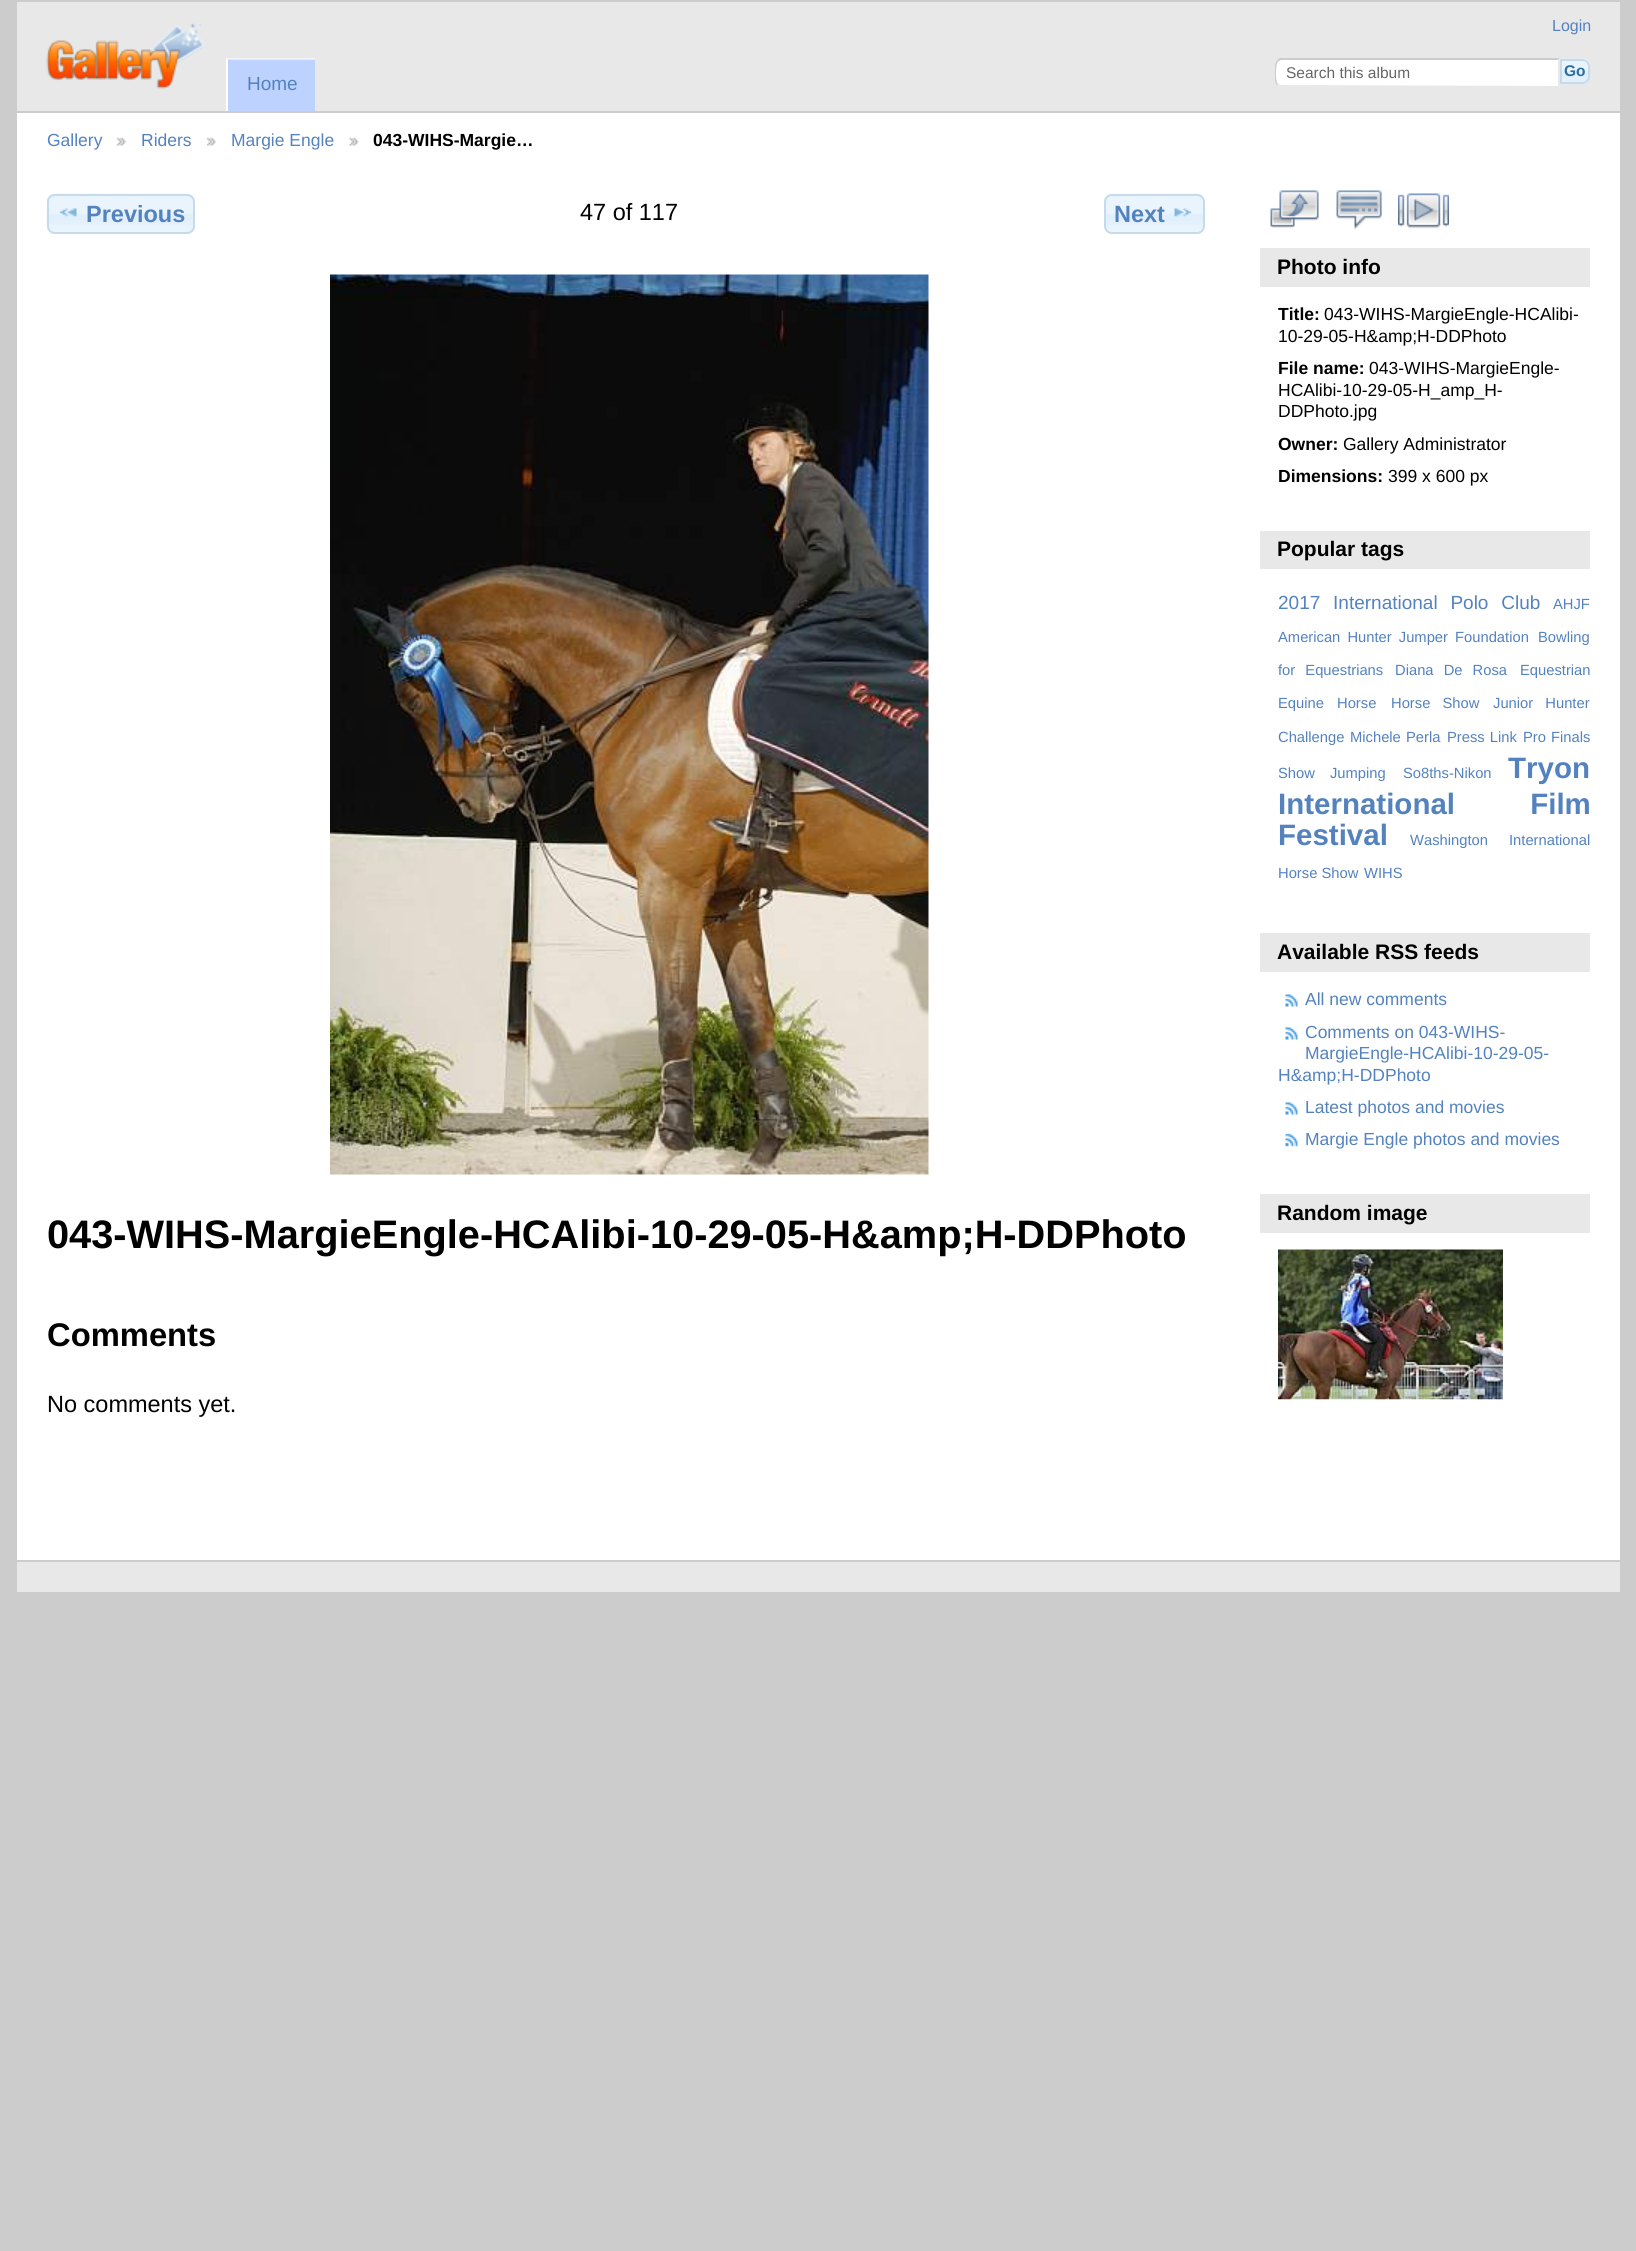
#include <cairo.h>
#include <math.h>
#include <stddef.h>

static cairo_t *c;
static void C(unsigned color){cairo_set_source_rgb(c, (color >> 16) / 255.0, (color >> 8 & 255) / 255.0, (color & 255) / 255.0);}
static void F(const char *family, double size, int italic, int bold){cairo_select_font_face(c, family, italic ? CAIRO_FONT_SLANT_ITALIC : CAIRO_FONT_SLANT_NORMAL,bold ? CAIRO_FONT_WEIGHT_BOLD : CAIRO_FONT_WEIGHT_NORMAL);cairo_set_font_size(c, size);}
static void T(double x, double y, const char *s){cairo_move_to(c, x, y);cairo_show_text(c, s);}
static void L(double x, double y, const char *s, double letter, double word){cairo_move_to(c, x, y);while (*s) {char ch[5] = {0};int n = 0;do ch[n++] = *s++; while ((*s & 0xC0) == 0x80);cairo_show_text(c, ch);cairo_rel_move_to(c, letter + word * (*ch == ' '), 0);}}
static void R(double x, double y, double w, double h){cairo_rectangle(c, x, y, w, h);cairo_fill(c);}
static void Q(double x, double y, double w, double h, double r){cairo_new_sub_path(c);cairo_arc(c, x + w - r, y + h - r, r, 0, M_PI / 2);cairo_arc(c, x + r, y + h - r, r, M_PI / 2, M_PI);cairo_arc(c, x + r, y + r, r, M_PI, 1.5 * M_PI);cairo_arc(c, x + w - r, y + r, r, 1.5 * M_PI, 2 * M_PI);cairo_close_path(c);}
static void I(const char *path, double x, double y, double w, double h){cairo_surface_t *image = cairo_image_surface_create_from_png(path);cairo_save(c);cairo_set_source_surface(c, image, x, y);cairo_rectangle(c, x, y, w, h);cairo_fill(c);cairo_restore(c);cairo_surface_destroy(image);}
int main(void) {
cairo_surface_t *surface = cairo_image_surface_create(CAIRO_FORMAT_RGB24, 1636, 2251);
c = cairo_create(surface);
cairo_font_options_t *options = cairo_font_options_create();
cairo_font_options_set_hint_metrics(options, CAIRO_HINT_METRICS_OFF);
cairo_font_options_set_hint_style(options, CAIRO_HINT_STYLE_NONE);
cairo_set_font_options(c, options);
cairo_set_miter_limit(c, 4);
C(0xcccccc);
cairo_paint(c);
C(0xffffff);
R(17,113,1603,1447);
C(0xe8e8e8);
R(17,2,1603,109);
I("1.png",46,23,159,66);
F("Liberation Sans",16,0,0);
C(0x5382bf);
T(1552,31,"Login");
C(0xffffff);
cairo_new_path(c);
cairo_move_to(c,1283,59);
cairo_line_to(c,1560,59);
cairo_line_to(c,1560,87);
cairo_line_to(c,1283,87);
cairo_curve_to(c,1278.5,87,1275,83.5,1275,79);
cairo_line_to(c,1275,67);
cairo_curve_to(c,1275,62.5,1278.5,59,1283,59);
cairo_close_path(c);
cairo_fill(c);
C(0xcccccc);
cairo_new_path(c);
cairo_move_to(c,1282,60);
cairo_curve_to(c,1280,60,1279,61,1278,62);
cairo_line_to(c,1277,60);
cairo_line_to(c,1280,58);
cairo_line_to(c,1560,58);
cairo_line_to(c,1558,60);
cairo_close_path(c);
cairo_fill(c);
C(0xe8e8e8);
cairo_new_path(c);
cairo_move_to(c,1560,58.5);
cairo_line_to(c,1558,60.5);
cairo_line_to(c,1558,85);
cairo_line_to(c,1560,87);
cairo_close_path(c);
cairo_fill(c);
cairo_new_path(c);
cairo_move_to(c,1560,87);
cairo_line_to(c,1558,85);
cairo_line_to(c,1558,86);
cairo_line_to(c,1281,85);
cairo_line_to(c,1278,84);
cairo_line_to(c,1277,85);
cairo_curve_to(c,1278,86,1280,87,1282,87);
cairo_close_path(c);
cairo_fill(c);
C(0xcccccc);
cairo_new_path(c);
cairo_move_to(c,1275,66);
cairo_line_to(c,1275,80);
cairo_curve_to(c,1275,82,1276,84,1277,85);
cairo_line_to(c,1278,84);
cairo_curve_to(c,1276,81.5,1276,77.5,1276,74.5);
cairo_line_to(c,1276,73);
cairo_curve_to(c,1276,69.5,1276,64.5,1278,61.5);
cairo_line_to(c,1277,60.5);
cairo_curve_to(c,1276,62,1275,64,1275,66);
cairo_close_path(c);
cairo_fill(c);
F("Liberation Sans",15.5,0,0);
C(0x666666);
T(1286,78,"Search this album");
I("2.png",1560,58,30,26);
cairo_new_path(c);
cairo_move_to(c,1561,60);
cairo_line_to(c,1582,60);
cairo_curve_to(c,1586,60,1589,63,1589,67);
cairo_line_to(c,1589,76);
cairo_curve_to(c,1589,80,1586,83,1582,83);
cairo_line_to(c,1561,83);
cairo_close_path(c);
C(0xc5dbec);
cairo_stroke(c);
F("Liberation Sans",15.5,0,1);
C(0x2e6e9e);
T(1564,76,"Go");
C(0xbdd2ff);
R(227,59,88,52);
cairo_set_source_rgba(c,1,1,1,0.5);
cairo_new_path(c);
cairo_move_to(c,226,58);
cairo_line_to(c,315,58);
cairo_line_to(c,315,60);
cairo_line_to(c,228,60);
cairo_close_path(c);
cairo_fill(c);
C(0xffffff);
cairo_new_path(c);
cairo_move_to(c,226,111);
cairo_line_to(c,226,58);
cairo_line_to(c,228,60);
cairo_line_to(c,228,111);
cairo_close_path(c);
cairo_fill(c);
F("Liberation Sans",19,0,0);
C(0x5382bf);
T(247,90,"Home");
F("Liberation Sans",17.5,0,0);
T(47,146,"Gallery");
I("3.png",116,137,11,9);
T(141,146,"Riders");
I("3.png",206,137,11,9);
T(231,146,"Margie Engle");
I("4.png",349,137,10,9);
F("Liberation Sans",17.5,0,1);
C(0x000000);
T(373,146,"043-WIHS-Margie…");
I("5.png",46,193,149,41);
Q(48,195,146,38,7);
C(0xc5dbec);
cairo_stroke(c);
I("6.png",59,208,18,9);
F("Liberation Sans",23.5,0,1);
C(0x5382bf);
T(86,222,"Previous");
F("Liberation Sans",23.5,0,0);
C(0x000000);
T(580,220,"47 of 117");
I("7.png",1104,193,100,41);
Q(1105,195,99,38,7);
C(0xc5dbec);
cairo_stroke(c);
F("Liberation Sans",23.5,0,1);
C(0x5382bf);
T(1114,222,"Next");
I("8.png",1174,208,18,9);
I("9.png",330,274,599,901);
F("Liberation Sans",39.75,0,1);
C(0x000000);
T(47,1248,"043-WIHS-MargieEngle-HCAlibi-10-29-05-H&amp;H-DDPhoto");
F("Liberation Sans",32.75,0,1);
T(47,1346,"Comments");
F("Liberation Sans",23.5,0,0);
T(47,1412,"No comments yet.");
I("10.png",1270,190,49,38);
I("11.png",1336,190,46,40);
I("12.png",1398,193,51,36);
C(0xe8e8e8);
R(1260,248,330,39);
F("Liberation Sans",21,0,1);
C(0x000000);
T(1277,274,"Photo info");
F("Liberation Sans",17.5,0,1);
T(1278,320,"Title:");
F("Liberation Sans",17.5,0,0);
T(1324,320,"043-WIHS-MargieEngle-HCAlibi-");
T(1278,342,"10-29-05-H&amp;H-DDPhoto");
F("Liberation Sans",17.5,0,1);
T(1278,374,"File name:");
F("Liberation Sans",17.5,0,0);
T(1369,374,"043-WIHS-MargieEngle-");
T(1278,396,"HCAlibi-10-29-05-H_amp_H-");
T(1278,417,"DDPhoto.jpg");
F("Liberation Sans",17.5,0,1);
T(1278,450,"Owner:");
F("Liberation Sans",17.5,0,0);
T(1343,450,"Gallery Administrator");
F("Liberation Sans",17.5,0,1);
T(1278,482,"Dimensions:");
F("Liberation Sans",17.5,0,0);
T(1388,482,"399 x 600 px");
C(0xe8e8e8);
R(1260,531,330,38);
F("Liberation Sans",21,0,1);
C(0x000000);
T(1277,556,"Popular tags");
F("Liberation Sans",19,0,0);
C(0x5382bf);
L(1278,609,"2017 International Polo Club",0,7.5);
F("Liberation Sans",14.75,0,0);
T(1553,609,"AHJF");
L(1278,642,"American Hunter Jumper Foundation",0,3);
T(1538,642,"Bowling");
L(1278,675,"for Equestrians",0,6);
L(1395,675,"Diana De Rosa",0,6);
T(1520,675,"Equestrian");
T(1278,708,"Equine");
T(1337,708,"Horse");
L(1391,708,"Horse Show",0,8);
L(1493,708,"Junior Hunter",0,8);
T(1278,742,"Challenge");
L(1350,742,"Michele Perla",0,1);
L(1447,742,"Press Link",0,1);
L(1523,742,"Pro Finals",0,1);
L(1278,778,"Show Jumping",0,11);
T(1403,778,"So8ths-Nikon");
F("Liberation Sans",29.5,0,1);
T(1508,778,"Tryon");
L(1278,814,"International Film",0,67);
T(1278,845,"Festival");
F("Liberation Sans",14.75,0,0);
L(1410,845,"Washington International",0,17);
T(1278,878,"Horse Show");
T(1364,878,"WIHS");
C(0xe8e8e8);
R(1260,933,330,39);
F("Liberation Sans",21,0,1);
C(0x000000);
T(1277,959,"Available RSS feeds");
I("13.png",1285,994,13,13);
F("Liberation Sans",17.5,0,0);
C(0x5382bf);
T(1305,1005,"All new comments");
I("13.png",1285,1027,13,13);
T(1305,1038,"Comments on 043-WIHS-");
T(1305,1059,"MargieEngle-HCAlibi-10-29-05-");
T(1278,1081,"H&amp;H-DDPhoto");
I("13.png",1285,1102,13,13);
T(1305,1113,"Latest photos and movies");
I("14.png",1285,1133,13,14);
T(1305,1145,"Margie Engle photos and movies");
C(0xe8e8e8);
R(1260,1194,330,39);
F("Liberation Sans",21,0,1);
C(0x000000);
T(1277,1220,"Random image");
I("15.png",1278,1249,225,151);
C(0xe8e8e8);
R(17,1562,1603,30);
cairo_surface_write_to_png(surface, "o.png");
cairo_font_options_destroy(options);
cairo_destroy(c);
cairo_surface_destroy(surface);
return 0;
}
